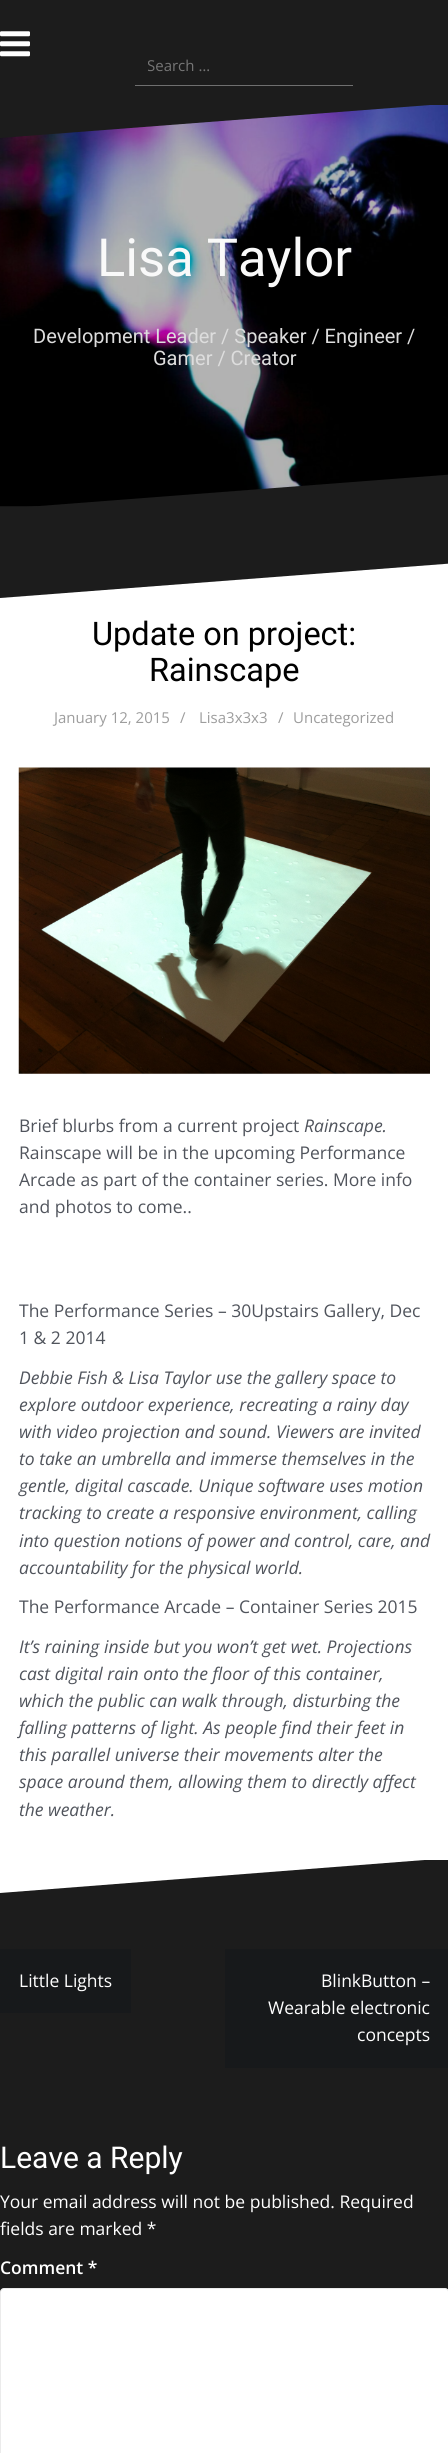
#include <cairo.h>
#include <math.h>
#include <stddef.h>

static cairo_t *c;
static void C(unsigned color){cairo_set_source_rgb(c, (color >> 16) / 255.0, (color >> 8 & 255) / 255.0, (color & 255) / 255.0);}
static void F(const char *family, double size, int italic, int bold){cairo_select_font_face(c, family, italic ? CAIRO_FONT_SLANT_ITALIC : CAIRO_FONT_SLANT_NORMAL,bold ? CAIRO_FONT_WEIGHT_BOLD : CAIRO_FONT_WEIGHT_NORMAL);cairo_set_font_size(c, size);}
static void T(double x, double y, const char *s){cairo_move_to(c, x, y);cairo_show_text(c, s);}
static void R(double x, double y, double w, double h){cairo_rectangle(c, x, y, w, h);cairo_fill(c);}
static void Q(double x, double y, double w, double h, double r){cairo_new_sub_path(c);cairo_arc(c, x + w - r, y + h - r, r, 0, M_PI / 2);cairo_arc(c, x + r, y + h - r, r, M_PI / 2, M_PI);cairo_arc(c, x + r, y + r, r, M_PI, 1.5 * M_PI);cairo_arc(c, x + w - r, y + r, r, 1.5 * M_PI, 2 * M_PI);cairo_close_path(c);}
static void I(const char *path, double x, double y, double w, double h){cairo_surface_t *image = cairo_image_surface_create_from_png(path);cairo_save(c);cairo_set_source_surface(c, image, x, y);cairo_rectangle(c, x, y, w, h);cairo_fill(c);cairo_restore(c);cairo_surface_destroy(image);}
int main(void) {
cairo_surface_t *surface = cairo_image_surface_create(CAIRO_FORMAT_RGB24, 448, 2453);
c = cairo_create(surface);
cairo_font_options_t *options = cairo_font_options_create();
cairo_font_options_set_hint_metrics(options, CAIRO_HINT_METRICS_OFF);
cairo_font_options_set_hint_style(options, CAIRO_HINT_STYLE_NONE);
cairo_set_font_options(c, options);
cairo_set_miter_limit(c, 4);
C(0x1c1c1c);
cairo_paint(c);
I("1.png",0,31,30,26);
C(0x6f6f6f);
R(135,85,218,1);
cairo_save(c);
cairo_rectangle(c,148,55,187,21);
cairo_clip(c);
F("Open Sans",15,0,0);
C(0x757575);
T(147,71,"Search …");
cairo_restore(c);
I("2.png",0,105,448,402);
C(0x1c1c1c);
cairo_new_path(c);
cairo_move_to(c,0,138);
cairo_line_to(c,0,104);
cairo_line_to(c,443,104);
cairo_fill(c);
F("Roboto",52.5,0,0);
C(0xf9f9f9);
T(97,276,"Lisa Taylor");
F("Roboto",20,0,0);
C(0xdddddd);
T(33,343,"Development Leader / Speaker / Engineer /");
T(153,365,"Gamer / Creator");
C(0x1c1c1c);
cairo_new_path(c);
cairo_move_to(c,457,474);
cairo_line_to(c,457,509);
cairo_line_to(c,0,509);
cairo_fill(c);
C(0xffffff);
cairo_new_path(c);
cairo_move_to(c,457,563);
cairo_line_to(c,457,598);
cairo_line_to(c,0,598);
cairo_fill(c);
R(0,598,448,1262);
F("Roboto",32.5,0,0);
C(0x000000);
T(92,645,"Update on project:");
T(149,681,"Rainscape");
F("Open Sans",15,0,0);
C(0x9d9d9d);
T(54,723,"January 12, 2015");
T(180,723,"/");
T(199,723,"Lisa3x3x3");
T(278,723,"/");
T(293,723,"Uncategorized");
I("3.png",18,767,412,307);
F("Open Sans",17.5,0,0);
C(0x50545c);
T(19,1132,"Brief blurbs from a current project");
F("Open Sans",17.5,1,0);
T(304,1132,"Rainscape.");
F("Open Sans",17.5,0,0);
T(19,1159,"Rainscape will be in the upcoming Performance");
T(19,1186,"Arcade as part of the container series. More info");
T(19,1213,"and photos to come..");
T(19,1317,"The Performance Series – 30Upstairs Gallery, Dec");
T(19,1344,"1 & 2 2014");
F("Open Sans",17.5,1,0);
T(19,1384,"Debbie Fish & Lisa Taylor use the gallery space to");
T(19,1411,"explore outdoor experience, recreating a rainy day");
T(19,1438,"with video projection and sound. Viewers are invited");
T(19,1465,"to take an umbrella and immerse themselves in the");
T(19,1492,"gentle, digital cascade. Unique software uses motion");
T(19,1519,"tracking to create a responsive environment, calling");
T(19,1547,"into question notions of power and control, care, and");
T(19,1574,"accountability for the physical world.");
F("Open Sans",17.5,0,0);
T(19,1613,"The Performance Arcade – Container Series 2015");
F("Open Sans",17.5,1,0);
T(19,1653,"It’s raining inside but you won’t get wet. Projections");
T(19,1680,"cast digital rain onto the floor of this container,");
T(19,1707,"which the public can walk through, disturbing the");
T(19,1734,"falling patterns of light. As people find their feet in");
T(19,1761,"this parallel universe their movements alter the");
T(19,1788,"space around them, allowing them to directly affect");
T(19,1816,"the weather.");
C(0xffffff);
cairo_new_path(c);
cairo_move_to(c,0,1893);
cairo_line_to(c,0,1858);
cairo_line_to(c,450,1858);
cairo_fill(c);
C(0x17191b);
R(0,1949,131,64);
F("Open Sans",17.5,0,0);
C(0xffffff);
T(19,1987,"Little Lights");
C(0x17191b);
R(225,1949,223,119);
C(0xffffff);
T(321,1987,"BlinkButton –");
T(268,2014,"Wearable electronic");
T(357,2041,"concepts");
F("Roboto",30,0,0);
T(0,2168,"Leave a Reply");
F("Open Sans",17.5,0,0);
T(0,2208,"Your email address will not be published. Required");
T(0,2235,"fields are marked *");
F("Open Sans SemiBold",17.5,0,0);
T(0,2274,"Comment *");
Q(.5,2288.5,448,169,3.5);
cairo_fill_preserve(c);
C(0xebebeb);
cairo_set_line_width(c,1);
cairo_stroke(c);
cairo_surface_write_to_png(surface, "o.png");
cairo_font_options_destroy(options);
cairo_destroy(c);
cairo_surface_destroy(surface);
return 0;
}
